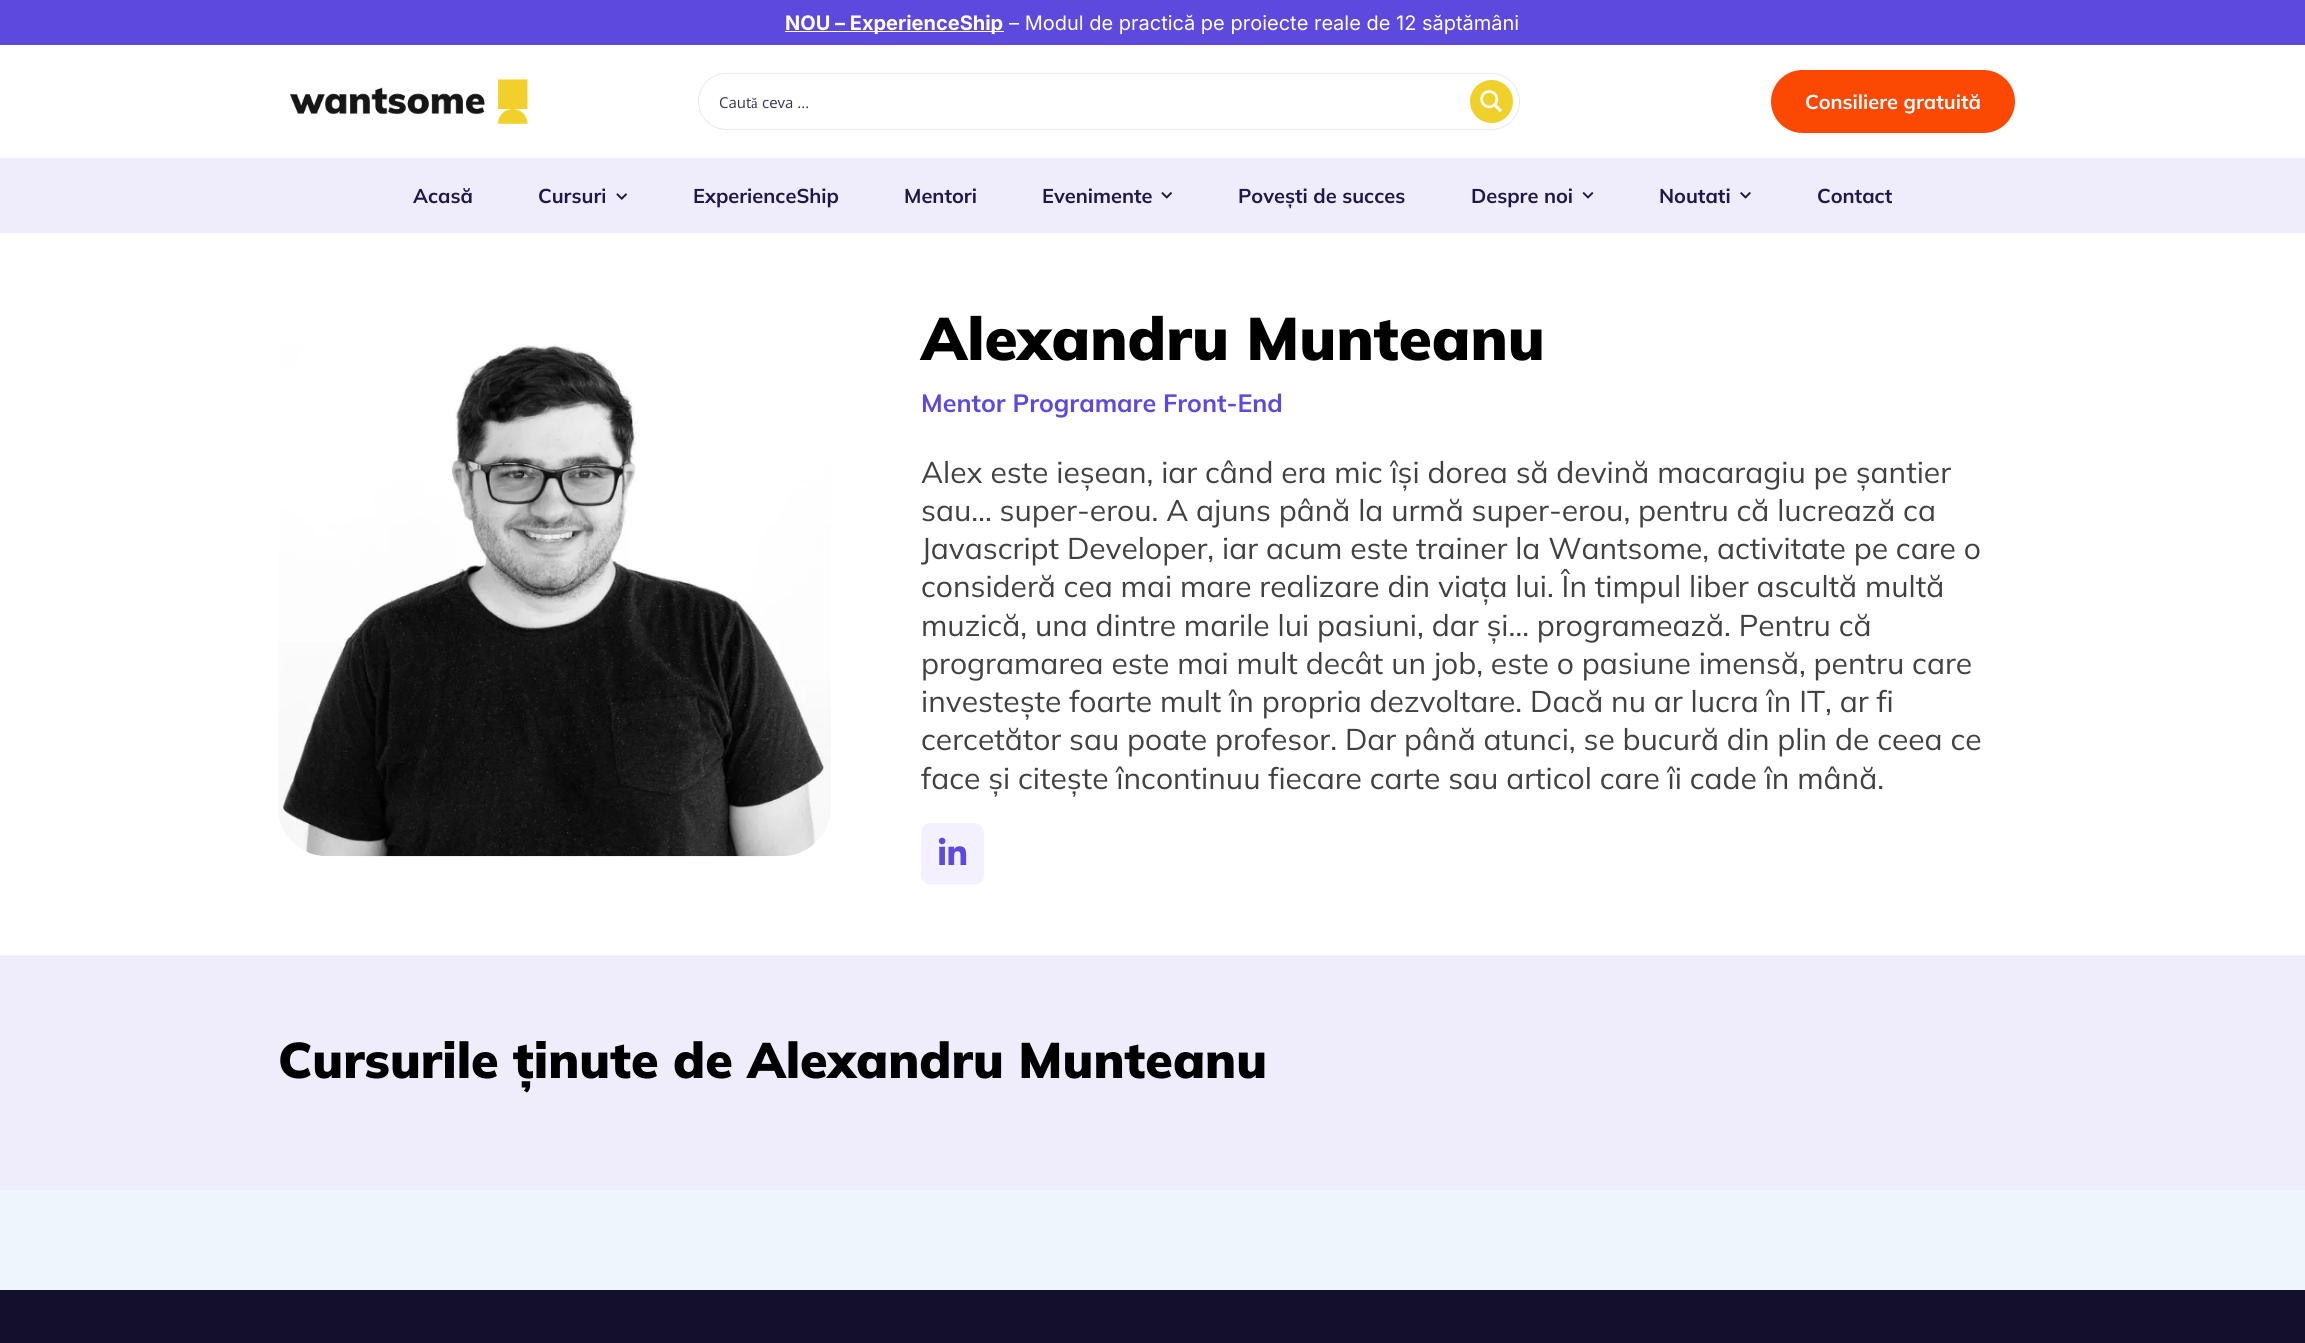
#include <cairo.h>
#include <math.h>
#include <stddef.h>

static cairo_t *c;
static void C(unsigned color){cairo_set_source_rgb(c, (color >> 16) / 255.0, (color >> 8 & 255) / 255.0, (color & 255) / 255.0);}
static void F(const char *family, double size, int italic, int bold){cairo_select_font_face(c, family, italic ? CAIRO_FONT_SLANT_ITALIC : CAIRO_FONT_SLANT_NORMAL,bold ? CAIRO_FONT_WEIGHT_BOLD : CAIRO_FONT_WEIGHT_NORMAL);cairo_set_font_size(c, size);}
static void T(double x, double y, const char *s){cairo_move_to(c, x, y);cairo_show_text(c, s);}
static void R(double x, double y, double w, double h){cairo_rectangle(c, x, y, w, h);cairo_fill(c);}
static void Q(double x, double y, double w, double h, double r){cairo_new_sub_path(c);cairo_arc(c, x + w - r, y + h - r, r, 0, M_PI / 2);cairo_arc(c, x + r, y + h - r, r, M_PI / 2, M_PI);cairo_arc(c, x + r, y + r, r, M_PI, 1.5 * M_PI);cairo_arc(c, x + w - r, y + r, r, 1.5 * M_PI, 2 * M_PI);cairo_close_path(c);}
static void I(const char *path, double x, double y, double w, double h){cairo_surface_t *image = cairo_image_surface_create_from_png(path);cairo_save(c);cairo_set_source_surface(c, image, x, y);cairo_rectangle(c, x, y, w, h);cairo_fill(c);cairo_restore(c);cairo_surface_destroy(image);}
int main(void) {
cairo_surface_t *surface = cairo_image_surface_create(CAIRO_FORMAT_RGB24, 2305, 1343);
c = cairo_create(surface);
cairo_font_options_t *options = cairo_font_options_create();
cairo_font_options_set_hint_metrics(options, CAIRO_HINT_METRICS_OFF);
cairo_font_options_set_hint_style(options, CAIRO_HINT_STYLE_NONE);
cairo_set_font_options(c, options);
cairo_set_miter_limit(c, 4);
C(0xffffff);
cairo_paint(c);
C(0x5d49dd);
R(0,0,2305,45);
C(0xffffff);
R(785,31,219,1);
F("Inter",20,0,1);
T(785,30,"NOU – ExperienceShip");
F("Inter",20,0,0);
T(1009,30,"– Modul de practică pe proiecte reale de 12 săptămâni");
I("1.png",290,78,238,46);
Q(698.5,73.5,821,56,28);
C(0xe9e9e9);
cairo_set_line_width(c,1);
cairo_stroke(c);
F("Open Sans",15,0,0);
C(0x36334c);
T(719,108,"Caut");
F("Liberation Serif",15,0,0);
T(751,108,"ă");
F("Open Sans",15,0,0);
T(762,108,"ceva ...");
C(0xf0d02a);
cairo_new_path(c);
cairo_arc(c,1491.5,101.5,21.5,0,2 * M_PI);
cairo_fill(c);
I("2.png",1480,90,23,23);
C(0xfb4803);
Q(1772.5,71.5,241,60,30);
cairo_fill_preserve(c);
cairo_set_line_width(c,3);
cairo_stroke(c);
F("Mulish",20,0,1);
C(0xffffff);
T(1805,109,"Consiliere gratuită");
C(0xefedfc);
R(0,158,2305,75);
C(0x1f184a);
T(413,203,"Acasă");
T(538,203,"Cursuri");
I("3.png",616,193,11,7);
T(693,203,"ExperienceShip");
T(904,203,"Mentori");
T(1042,203,"Evenimente");
I("4.png",1161,192,11,7);
T(1238,203,"Povești de succes");
T(1471,203,"Despre noi");
I("5.png",1582,192,12,7);
T(1659,203,"Noutati");
I("6.png",1740,192,11,7);
T(1817,203,"Contact");
I("7.png",278,343,553,514);
F("Mulish Black",60,0,0);
C(0x000000);
T(921,360,"Alexandru Munteanu");
F("Mulish",25,0,1);
C(0x5d49dd);
T(921,412,"Mentor Programare Front-End");
F("Mulish",30,0,0);
C(0x404142);
T(921,483,"Alex este ieșean, iar când era mic își dorea să devină macaragiu pe șantier");
T(921,521,"sau… super-erou. A ajuns până la urmă super-erou, pentru că lucrează ca");
T(921,559,"Javascript Developer, iar acum este trainer la Wantsome, activitate pe care o");
T(921,597,"consideră cea mai mare realizare din viața lui. În timpul liber ascultă multă");
T(921,636,"muzică, una dintre marile lui pasiuni, dar și… programează. Pentru că");
T(921,674,"programarea este mai mult decât un job, este o pasiune imensă, pentru care");
T(921,712,"investește foarte mult în propria dezvoltare. Dacă nu ar lucra în IT, ar fi");
T(921,750,"cercetător sau poate profesor. Dar până atunci, se bucură din plin de ceea ce");
T(921,789,"face și citește încontinuu fiecare carte sau articol care îi cade în mână.");
C(0xf3f1ff);
Q(921,823,63,62,10);
cairo_fill(c);
I("8.png",938,837,29,28);
C(0xefedfc);
R(0,955,2305,235);
F("Mulish Black",50,0,0);
C(0x000000);
T(278,1078,"Cursurile ținute de Alexandru Munteanu");
C(0xedf5fd);
R(0,1190,2305,100);
C(0x130f2c);
R(0,1290,2305,53);
cairo_surface_write_to_png(surface, "o.png");
cairo_font_options_destroy(options);
cairo_destroy(c);
cairo_surface_destroy(surface);
return 0;
}
